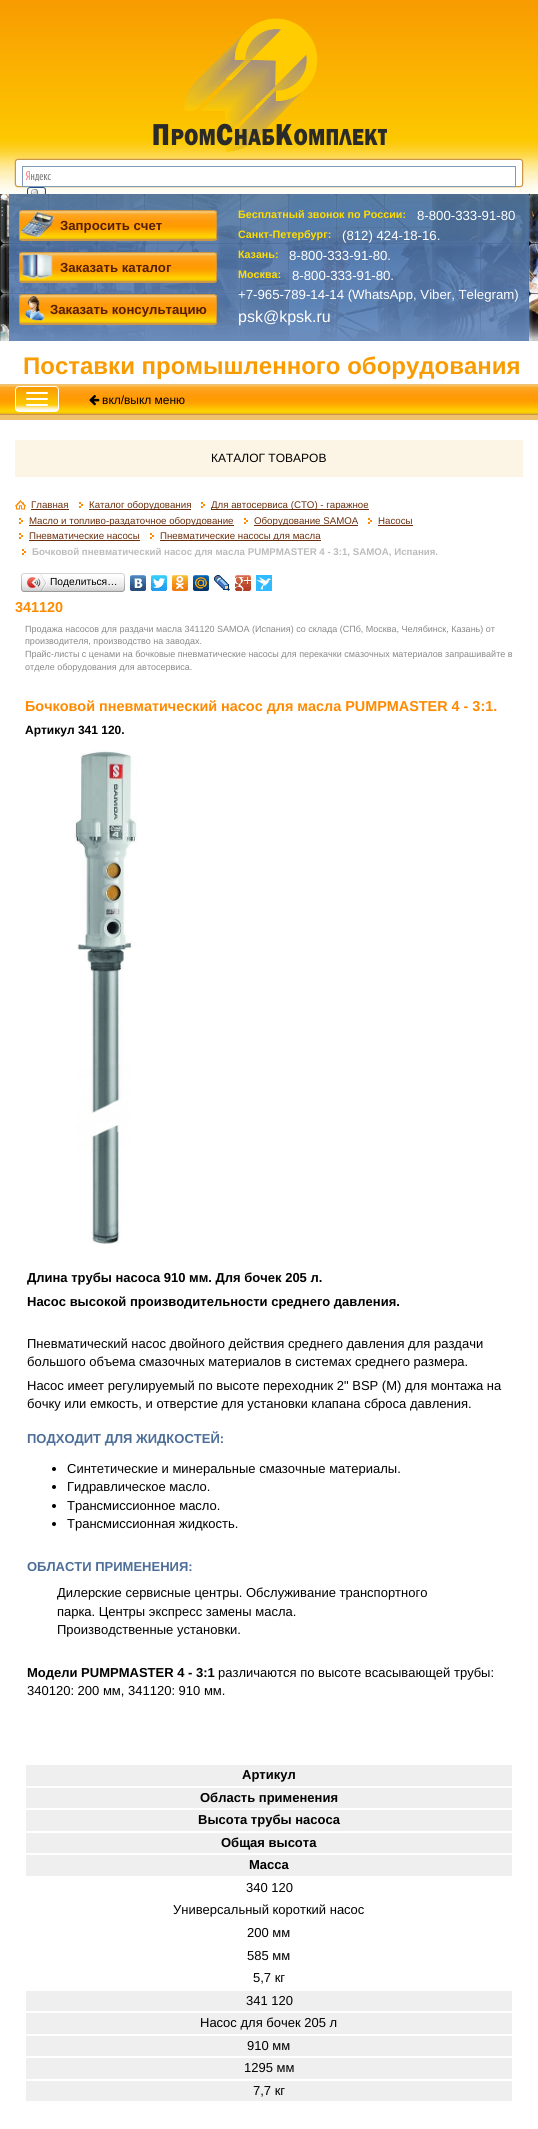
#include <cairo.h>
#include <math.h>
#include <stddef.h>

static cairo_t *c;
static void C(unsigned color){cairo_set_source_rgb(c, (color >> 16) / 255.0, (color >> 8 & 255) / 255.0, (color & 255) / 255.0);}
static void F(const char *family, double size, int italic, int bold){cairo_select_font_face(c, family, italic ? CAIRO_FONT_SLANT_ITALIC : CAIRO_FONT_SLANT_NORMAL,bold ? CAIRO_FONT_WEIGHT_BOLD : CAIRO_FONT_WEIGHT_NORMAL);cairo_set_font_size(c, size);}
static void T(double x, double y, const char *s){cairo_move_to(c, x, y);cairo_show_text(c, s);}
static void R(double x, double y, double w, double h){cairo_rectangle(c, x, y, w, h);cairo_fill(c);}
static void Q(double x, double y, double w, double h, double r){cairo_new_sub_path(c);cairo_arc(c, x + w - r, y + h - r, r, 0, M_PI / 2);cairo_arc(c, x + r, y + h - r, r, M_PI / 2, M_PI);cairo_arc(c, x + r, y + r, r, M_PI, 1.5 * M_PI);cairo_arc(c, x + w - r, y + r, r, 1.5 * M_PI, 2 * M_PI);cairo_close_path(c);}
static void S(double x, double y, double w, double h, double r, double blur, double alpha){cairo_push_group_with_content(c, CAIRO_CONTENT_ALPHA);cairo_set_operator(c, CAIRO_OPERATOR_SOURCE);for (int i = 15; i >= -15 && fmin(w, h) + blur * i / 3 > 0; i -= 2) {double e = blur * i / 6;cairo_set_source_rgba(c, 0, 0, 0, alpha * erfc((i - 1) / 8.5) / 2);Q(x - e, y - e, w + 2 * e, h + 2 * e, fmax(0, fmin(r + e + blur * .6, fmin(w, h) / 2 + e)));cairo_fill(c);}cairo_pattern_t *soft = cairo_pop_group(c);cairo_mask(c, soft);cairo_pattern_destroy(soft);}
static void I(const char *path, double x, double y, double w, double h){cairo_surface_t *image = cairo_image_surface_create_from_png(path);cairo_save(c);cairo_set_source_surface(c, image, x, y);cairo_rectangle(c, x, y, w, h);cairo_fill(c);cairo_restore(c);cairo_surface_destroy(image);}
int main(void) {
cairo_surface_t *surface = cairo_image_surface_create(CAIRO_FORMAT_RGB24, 538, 2129);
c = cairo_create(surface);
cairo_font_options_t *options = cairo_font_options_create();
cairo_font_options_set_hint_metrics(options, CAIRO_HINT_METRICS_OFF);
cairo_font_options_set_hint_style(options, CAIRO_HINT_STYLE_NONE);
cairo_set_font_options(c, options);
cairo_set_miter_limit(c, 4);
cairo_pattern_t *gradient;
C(0xffffff);
cairo_paint(c);
gradient = cairo_pattern_create_linear(269,0,269,194);
cairo_pattern_add_color_stop_rgba(gradient,0,0.973,0.608,0.004,1);
cairo_pattern_add_color_stop_rgba(gradient,.72,0.992,0.784,0,1);
cairo_pattern_add_color_stop_rgba(gradient,.76,0.992,0.808,0.114,1);
cairo_pattern_add_color_stop_rgba(gradient,.8,0.996,0.847,0.282,1);
cairo_pattern_add_color_stop_rgba(gradient,.84,0.996,0.894,0.506,1);
cairo_pattern_add_color_stop_rgba(gradient,.89,0.996,0.937,0.702,1);
cairo_pattern_add_color_stop_rgba(gradient,.95,1,0.976,0.886,1);
cairo_pattern_add_color_stop_rgba(gradient,1,1,1,0.992,1);
cairo_set_source(c,gradient);
cairo_pattern_destroy(gradient);
R(0,0,538,194);
I("1.png",153,18,234,134);
C(0xcb9745);
S(15,159,508,28,3,.5,1);
C(0xffffff);
Q(15.5,159.5,507,27,2.5);
cairo_fill_preserve(c);
C(0xcb9745);
cairo_set_line_width(c,1);
cairo_stroke(c);
I("2.png",25,171,26,11);
cairo_rectangle(c,22.5,166.5,493,20);
C(0x7f9db9);
cairo_stroke(c);
I("3.png",27,187,19,7);
I("4.png",0,194,538,147);
cairo_save(c);
Q(19,210,198,31,3);
cairo_clip(c);
gradient = cairo_pattern_create_linear(118,211,118,240);
cairo_pattern_add_color_stop_rgba(gradient,0,0.922,0.741,0.42,1);
cairo_pattern_add_color_stop_rgba(gradient,.03,0.953,0.769,0.439,1);
cairo_pattern_add_color_stop_rgba(gradient,.06,0.973,0.761,0.392,1);
cairo_pattern_add_color_stop_rgba(gradient,.1,0.992,0.663,0.157,1);
cairo_pattern_add_color_stop_rgba(gradient,.32,1,0.608,0.051,1);
cairo_pattern_add_color_stop_rgba(gradient,.52,1,0.608,0,1);
cairo_pattern_add_color_stop_rgba(gradient,.55,1,0.616,0,1);
cairo_pattern_add_color_stop_rgba(gradient,.65,1,0.663,0,1);
cairo_pattern_add_color_stop_rgba(gradient,.87,1,0.824,0,1);
cairo_pattern_add_color_stop_rgba(gradient,.9,0.988,0.816,0,1);
cairo_pattern_add_color_stop_rgba(gradient,.94,0.961,0.78,0,1);
cairo_pattern_add_color_stop_rgba(gradient,.97,0.839,0.631,0.255,1);
cairo_pattern_add_color_stop_rgba(gradient,1,0.749,0.549,0.294,1);
cairo_set_source(c,gradient);
cairo_pattern_destroy(gradient);
R(19,211,198,29);
cairo_restore(c);
Q(19.5,210.5,197,30,2.5);
C(0xcb9745);
cairo_stroke(c);
I("5.png",21,212,34,25);
F("Liberation Sans",13.2,0,1);
C(0x541f01);
T(60,230,"Запросить счет");
cairo_save(c);
Q(19,252,198,31,3);
cairo_clip(c);
gradient = cairo_pattern_create_linear(118,253,118,282);
cairo_pattern_add_color_stop_rgba(gradient,0,0.922,0.741,0.42,1);
cairo_pattern_add_color_stop_rgba(gradient,.03,0.953,0.769,0.439,1);
cairo_pattern_add_color_stop_rgba(gradient,.06,0.973,0.761,0.392,1);
cairo_pattern_add_color_stop_rgba(gradient,.1,0.992,0.663,0.157,1);
cairo_pattern_add_color_stop_rgba(gradient,.32,1,0.608,0.051,1);
cairo_pattern_add_color_stop_rgba(gradient,.52,1,0.608,0,1);
cairo_pattern_add_color_stop_rgba(gradient,.55,1,0.616,0,1);
cairo_pattern_add_color_stop_rgba(gradient,.65,1,0.663,0,1);
cairo_pattern_add_color_stop_rgba(gradient,.87,1,0.824,0,1);
cairo_pattern_add_color_stop_rgba(gradient,.9,0.988,0.816,0,1);
cairo_pattern_add_color_stop_rgba(gradient,.94,0.961,0.78,0,1);
cairo_pattern_add_color_stop_rgba(gradient,.97,0.839,0.631,0.255,1);
cairo_pattern_add_color_stop_rgba(gradient,1,0.749,0.549,0.294,1);
cairo_set_source(c,gradient);
cairo_pattern_destroy(gradient);
R(19,253,198,29);
cairo_restore(c);
Q(19.5,252.5,197,30,2.5);
C(0xcb9745);
cairo_stroke(c);
I("6.png",22,254,31,25);
C(0x541f01);
T(60,272,"Заказать каталог");
cairo_save(c);
Q(19,294,198,31,3);
cairo_clip(c);
gradient = cairo_pattern_create_linear(118,295,118,324);
cairo_pattern_add_color_stop_rgba(gradient,0,0.922,0.741,0.42,1);
cairo_pattern_add_color_stop_rgba(gradient,.03,0.953,0.769,0.439,1);
cairo_pattern_add_color_stop_rgba(gradient,.06,0.973,0.761,0.392,1);
cairo_pattern_add_color_stop_rgba(gradient,.1,0.992,0.663,0.157,1);
cairo_pattern_add_color_stop_rgba(gradient,.32,1,0.608,0.051,1);
cairo_pattern_add_color_stop_rgba(gradient,.52,1,0.608,0,1);
cairo_pattern_add_color_stop_rgba(gradient,.55,1,0.616,0,1);
cairo_pattern_add_color_stop_rgba(gradient,.65,1,0.663,0,1);
cairo_pattern_add_color_stop_rgba(gradient,.87,1,0.824,0,1);
cairo_pattern_add_color_stop_rgba(gradient,.9,0.988,0.816,0,1);
cairo_pattern_add_color_stop_rgba(gradient,.94,0.961,0.78,0,1);
cairo_pattern_add_color_stop_rgba(gradient,.97,0.839,0.631,0.255,1);
cairo_pattern_add_color_stop_rgba(gradient,1,0.749,0.549,0.294,1);
cairo_set_source(c,gradient);
cairo_pattern_destroy(gradient);
R(19,295,198,29);
cairo_restore(c);
Q(19.5,294.5,197,30,2.5);
C(0xcb9745);
cairo_stroke(c);
I("7.png",25,296,20,25);
C(0x541f01);
T(50,314,"Заказать консультацию");
F("Liberation Sans",10.75,0,1);
C(0xffde00);
T(238,218,"Бесплатный звонок по России:");
F("Liberation Sans",13.2,0,0);
C(0xffffff);
T(417,220,"8-800-333-91-80");
F("Liberation Sans",10.75,0,1);
C(0xffde00);
T(238,238,"Санкт-Петербург:");
F("Liberation Sans",13.2,0,0);
C(0xffffff);
T(342,240,"(812) 424-18-16.");
F("Liberation Sans",10.75,0,1);
C(0xffde00);
T(238,258,"Казань:");
F("Liberation Sans",13.2,0,0);
C(0xffffff);
T(289,260,"8-800-333-91-80.");
F("Liberation Sans",10.75,0,1);
C(0xffde00);
T(238,278,"Москва:");
F("Liberation Sans",13.2,0,0);
C(0xffffff);
T(292,280,"8-800-333-91-80.");
T(238,299,"+7-965-789-14-14 (WhatsApp, Viber, Telegram)");
F("Liberation Sans",16,0,0);
T(238,322,"psk@kpsk.ru");
F("Liberation Sans",24,0,1);
C(0xf89c01);
T(23,374,"Поставки промышленного оборудования");
C(0xf0c16e);
R(0,415,538,5);
gradient = cairo_pattern_create_linear(269,384,269,415);
cairo_pattern_add_color_stop_rgba(gradient,0,0.922,0.741,0.42,1);
cairo_pattern_add_color_stop_rgba(gradient,.03,0.953,0.769,0.439,1);
cairo_pattern_add_color_stop_rgba(gradient,.06,0.973,0.761,0.392,1);
cairo_pattern_add_color_stop_rgba(gradient,.1,0.992,0.663,0.157,1);
cairo_pattern_add_color_stop_rgba(gradient,.32,1,0.608,0.051,1);
cairo_pattern_add_color_stop_rgba(gradient,.52,1,0.608,0,1);
cairo_pattern_add_color_stop_rgba(gradient,.55,1,0.616,0,1);
cairo_pattern_add_color_stop_rgba(gradient,.65,1,0.663,0,1);
cairo_pattern_add_color_stop_rgba(gradient,.87,1,0.824,0,1);
cairo_pattern_add_color_stop_rgba(gradient,.9,0.988,0.816,0,1);
cairo_pattern_add_color_stop_rgba(gradient,.94,0.961,0.78,0,1);
cairo_pattern_add_color_stop_rgba(gradient,.97,0.839,0.631,0.255,1);
cairo_pattern_add_color_stop_rgba(gradient,1,0.749,0.549,0.294,1);
cairo_set_source(c,gradient);
cairo_pattern_destroy(gradient);
R(0,384,538,31);
cairo_save(c);
Q(15,386,44,26,4);
cairo_clip(c);
gradient = cairo_pattern_create_linear(37,387,37,411);
cairo_pattern_add_color_stop_rgba(gradient,0,0.973,0.608,0.004,1);
cairo_pattern_add_color_stop_rgba(gradient,.72,0.992,0.784,0,1);
cairo_pattern_add_color_stop_rgba(gradient,.76,0.992,0.808,0.114,1);
cairo_pattern_add_color_stop_rgba(gradient,.8,0.996,0.847,0.282,1);
cairo_pattern_add_color_stop_rgba(gradient,.84,0.996,0.894,0.506,1);
cairo_pattern_add_color_stop_rgba(gradient,.89,0.996,0.937,0.702,1);
cairo_pattern_add_color_stop_rgba(gradient,.95,1,0.976,0.886,1);
cairo_pattern_add_color_stop_rgba(gradient,1,1,1,0.992,1);
cairo_set_source(c,gradient);
cairo_pattern_destroy(gradient);
R(15,387,44,24);
cairo_restore(c);
Q(15.5,386.5,43,25,3.5);
C(0xffffff);
cairo_stroke(c);
Q(26,392,22,2,1);
cairo_fill(c);
Q(26,398,22,2,1);
cairo_fill(c);
I("8.png",89,395,11,11);
F("Liberation Sans",12,0,0);
C(0x000000);
T(102,404,"вкл/выкл меню");
C(0xffffff);
Q(26,404,22,2,1);
cairo_fill(c);
C(0xfcf5e5);
R(15,440,508,37);
C(0x000000);
T(211,462,"КАТАЛОГ ТОВАРОВ");
I("9.png",15,500,11,10);
F("Liberation Sans",9.7,0,0);
C(0x6c300e);
T(31,508,"Главная");
R(31,509,38,1);
I("10.png",79,502,4,6);
R(89,509,102,1);
T(89,508,"Каталог оборудования");
I("10.png",201,502,4,6);
R(211,509,158,1);
T(211,508,"Для автосервиса (СТО) - гаражное");
I("10.png",19,518,4,6);
R(29,525,205,1);
T(29,524,"Масло и топливо-раздаточное оборудование");
I("10.png",244,518,4,6);
R(254,525,104,1);
T(254,524,"Оборудование SAMOA");
I("10.png",368,518,4,6);
T(378,524,"Насосы");
R(378,525,35,1);
I("10.png",19,533,4,6);
T(29,539,"Пневматические насосы");
R(29,540,111,1);
I("10.png",150,533,4,6);
R(160,540,161,1);
T(160,539,"Пневматические насосы для масла");
I("10.png",22,549,4,6);
F("Liberation Sans",9.7,0,1);
C(0xbcbcbc);
T(32,555,"Бочковой пневматический насос для масла PUMPMASTER 4 - 3:1, SAMOA, Испания.");
I("11.png",24,573,98,19);
I("12.png",21,573,3,19);
I("13.png",27,574,20,17);
F("Liberation Sans",10.25,0,0);
C(0x000000);
T(50,585,"Поделиться…");
I("14.png",122,573,3,19);
I("15.png",130,575,16,16);
I("16.png",151,575,16,16);
I("17.png",172,575,16,16);
I("18.png",193,575,16,16);
I("19.png",214,575,16,16);
I("20.png",235,575,16,16);
I("21.png",256,575,16,16);
F("Liberation Sans",14.4,0,1);
C(0xff8a00);
T(15,612,"341120");
F("Liberation Sans",9,0,0);
C(0x888888);
T(25,632,"Продажа насосов для раздачи масла 341120 SAMOA (Испания) со склада (СПб, Москва, Челябинск, Казань) от");
T(25,644,"производителя, производство на заводах.");
T(25,657,"Прайс-листы с ценами на бочковые пневматические насосы для перекачки смазочных материалов запрашивайте в");
T(25,670,"отделе оборудования для автосервиса.");
F("Liberation Sans",14.4,0,1);
C(0xff8a00);
T(25,711,"Бочковой пневматический насос для масла PUMPMASTER 4 - 3:1.");
F("Liberation Sans",12,0,1);
C(0x000000);
T(25,734,"Артикул 341 120.");
I("22.png",74,750,64,494);
F("Liberation Sans",13,0,1);
T(27,1282,"Длина трубы насоса 910 мм. Для бочек 205 л.");
T(27,1306,"Насос высокой производительности среднего давления.");
F("Liberation Sans",13,0,0);
T(27,1348,"Пневматический насос двойного действия среднего давления для раздачи");
T(27,1366,"большого объема смазочных материалов в системах среднего размера.");
T(27,1390,"Насос имеет регулируемый по высоте переходник 2\" BSP (M) для монтажа на");
T(27,1408,"бочку или емкость, и отверстие для установки клапана сброса давления.");
F("Liberation Sans",13,0,1);
C(0x4d6e99);
T(27,1443,"ПОДХОДИТ ДЛЯ ЖИДКОСТЕЙ:");
C(0x000000);
cairo_new_path(c);
cairo_arc(c,54,1469,2,0,2 * M_PI);
cairo_fill(c);
F("Liberation Sans",13,0,0);
T(67,1473,"Синтетические и минеральные смазочные материалы.");
cairo_new_path(c);
cairo_arc(c,54,1487,2,0,2 * M_PI);
cairo_fill(c);
T(67,1491,"Гидравлическое масло.");
cairo_new_path(c);
cairo_arc(c,54,1506,2,0,2 * M_PI);
cairo_fill(c);
T(67,1510,"Трансмиссионное масло.");
cairo_new_path(c);
cairo_arc(c,54,1524,2,0,2 * M_PI);
cairo_fill(c);
T(67,1528,"Трансмиссионная жидкость.");
F("Liberation Sans",13,0,1);
C(0x4d6e99);
T(27,1571,"ОБЛАСТИ ПРИМЕНЕНИЯ:");
F("Liberation Sans",13,0,0);
C(0x000000);
T(57,1597,"Дилерские сервисные центры. Обслуживание транспортного");
T(57,1616,"парка. Центры экспресс замены масла.");
T(57,1634,"Производственные установки.");
F("Liberation Sans",13,0,1);
T(27,1677,"Модели PUMPMASTER 4 - 3:1");
F("Liberation Sans",13,0,0);
T(218,1677,"различаются по высоте всасывающей трубы:");
T(27,1695,"340120: 200 мм, 341120: 910 мм.");
C(0xf0efef);
R(26,1765,486,111);
cairo_rectangle(c,25.5,1764.5,487,22);
C(0xffffff);
cairo_stroke(c);
F("Liberation Sans",13,0,1);
C(0x000000);
T(242,1779,"Артикул");
cairo_rectangle(c,25.5,1787.5,487,21);
C(0xffffff);
cairo_stroke(c);
C(0x000000);
T(200,1802,"Область применения");
cairo_rectangle(c,25.5,1809.5,487,22);
C(0xffffff);
cairo_stroke(c);
C(0x000000);
T(198,1824,"Высота трубы насоса");
cairo_rectangle(c,25.5,1832.5,487,21);
C(0xffffff);
cairo_stroke(c);
C(0x000000);
T(221,1847,"Общая высота");
cairo_rectangle(c,25.5,1854.5,487,22);
C(0xffffff);
cairo_stroke(c);
C(0x000000);
T(249,1869,"Масса");
F("Liberation Sans",13,0,0);
T(246,1892,"340 120");
T(173,1914,"Универсальный короткий насос");
T(247,1937,"200 мм");
T(247,1960,"585 мм");
T(253,1982,"5,7 кг");
C(0xf0efef);
R(26,1991,486,110);
cairo_rectangle(c,25.5,1990.5,487,21);
C(0xffffff);
cairo_stroke(c);
C(0x000000);
T(246,2005,"341 120");
cairo_rectangle(c,25.5,2012.5,487,22);
C(0xffffff);
cairo_stroke(c);
C(0x000000);
T(200,2027,"Насос для бочек 205 л");
cairo_rectangle(c,25.5,2035.5,487,21);
C(0xffffff);
cairo_stroke(c);
C(0x000000);
T(247,2050,"910 мм");
cairo_rectangle(c,25.5,2057.5,487,22);
C(0xffffff);
cairo_stroke(c);
C(0x000000);
T(244,2072,"1295 мм");
cairo_rectangle(c,25.5,2080.5,487,21);
C(0xffffff);
cairo_stroke(c);
C(0x000000);
T(253,2095,"7,7 кг");
cairo_surface_write_to_png(surface, "o.png");
cairo_font_options_destroy(options);
cairo_destroy(c);
cairo_surface_destroy(surface);
return 0;
}
